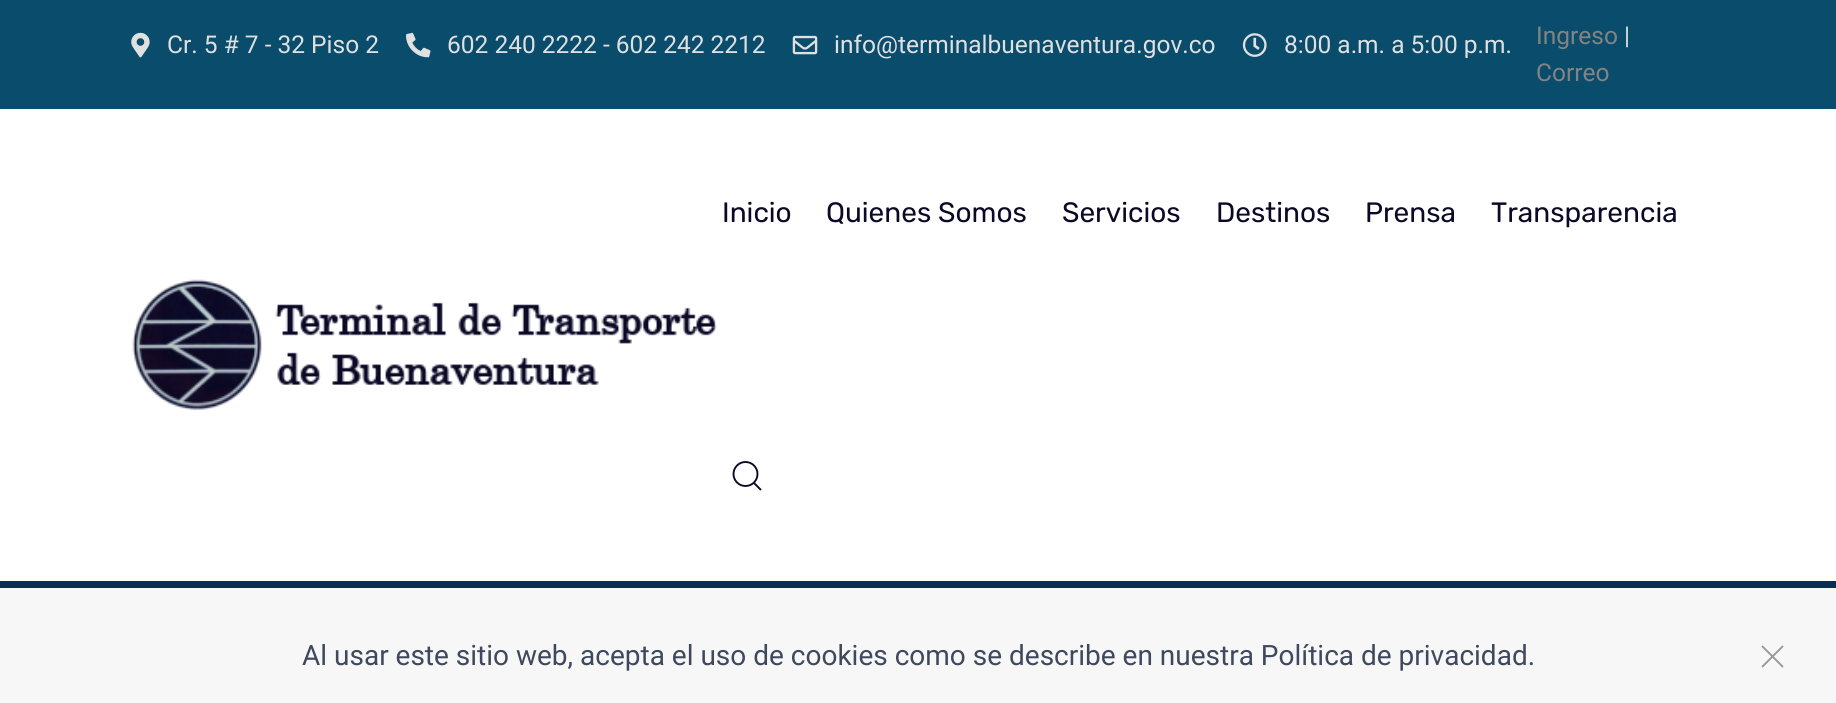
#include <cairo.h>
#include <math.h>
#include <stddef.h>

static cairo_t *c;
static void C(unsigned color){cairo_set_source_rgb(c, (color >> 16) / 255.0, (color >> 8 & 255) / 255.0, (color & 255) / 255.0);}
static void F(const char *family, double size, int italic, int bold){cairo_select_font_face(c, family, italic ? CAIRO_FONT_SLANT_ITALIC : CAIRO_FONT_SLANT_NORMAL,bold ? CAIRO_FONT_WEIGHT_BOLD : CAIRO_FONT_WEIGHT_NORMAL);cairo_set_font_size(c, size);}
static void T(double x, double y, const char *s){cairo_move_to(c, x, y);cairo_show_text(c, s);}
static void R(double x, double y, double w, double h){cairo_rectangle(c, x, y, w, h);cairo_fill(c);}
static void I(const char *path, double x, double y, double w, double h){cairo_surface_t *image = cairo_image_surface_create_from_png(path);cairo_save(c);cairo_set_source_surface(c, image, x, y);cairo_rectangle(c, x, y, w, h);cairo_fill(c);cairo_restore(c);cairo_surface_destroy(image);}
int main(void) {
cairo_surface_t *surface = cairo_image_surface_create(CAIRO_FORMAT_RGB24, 1836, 703);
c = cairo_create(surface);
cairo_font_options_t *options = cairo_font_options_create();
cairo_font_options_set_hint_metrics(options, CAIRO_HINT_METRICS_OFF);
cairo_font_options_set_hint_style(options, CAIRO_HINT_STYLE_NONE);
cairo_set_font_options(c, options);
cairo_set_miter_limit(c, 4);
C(0xf7f7f7);
cairo_paint(c);
C(0x094c6b);
R(0,0,1836,109);
I("1.png",131,32,19,26);
F("Roboto",24.5,0,0);
C(0xe0e0e0);
T(167,53,"Cr. 5 # 7 - 32 Piso 2");
I("2.png",406,32,25,26);
T(447,53,"602 240 2222 - 602 242 2212");
I("3.png",792,35,26,20);
T(834,53,"info@terminalbuenaventura.gov.co");
I("4.png",1242,33,25,24);
T(1284,53,"8:00 a.m. a 5:00 p.m.");
C(0x838383);
T(1536,44,"Ingreso");
C(0xe0e0e0);
T(1624,44,"|");
C(0x838383);
T(1536,81,"Correo");
C(0x0b2a54);
R(0,581,1836,7);
C(0xffffff);
R(0,109,1836,472);
F("Rubik",28,0,0);
C(0x0c0927);
T(722,222,"Inicio");
T(826,222,"Quienes Somos");
T(1062,222,"Servicios");
T(1216,222,"Destinos");
T(1365,222,"Prensa");
T(1491,222,"Transparencia");
cairo_new_path(c);
cairo_arc(c,745.5,474,12,0,2 * M_PI);
cairo_set_line_width(c,1.9);
cairo_stroke(c);
cairo_new_path(c);
cairo_move_to(c,754,483);
cairo_line_to(c,761,490);
cairo_close_path(c);
cairo_stroke(c);
I("5.png",132,279,585,131);
F("Roboto",28,0,0);
C(0x3f485d);
T(302,665,"Al usar este sitio web, acepta el uso de cookies como se describe en nuestra Política de privacidad.");
cairo_new_path(c);
cairo_move_to(c,1762,646);
cairo_line_to(c,1783,667);
cairo_move_to(c,1783,646);
cairo_line_to(c,1762,667);
C(0x999999);
cairo_stroke(c);
cairo_surface_write_to_png(surface, "o.png");
cairo_font_options_destroy(options);
cairo_destroy(c);
cairo_surface_destroy(surface);
return 0;
}
